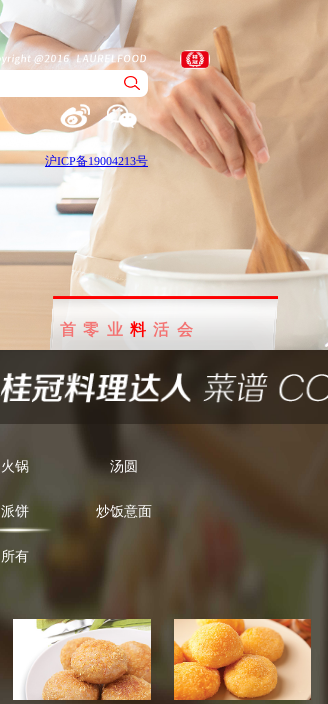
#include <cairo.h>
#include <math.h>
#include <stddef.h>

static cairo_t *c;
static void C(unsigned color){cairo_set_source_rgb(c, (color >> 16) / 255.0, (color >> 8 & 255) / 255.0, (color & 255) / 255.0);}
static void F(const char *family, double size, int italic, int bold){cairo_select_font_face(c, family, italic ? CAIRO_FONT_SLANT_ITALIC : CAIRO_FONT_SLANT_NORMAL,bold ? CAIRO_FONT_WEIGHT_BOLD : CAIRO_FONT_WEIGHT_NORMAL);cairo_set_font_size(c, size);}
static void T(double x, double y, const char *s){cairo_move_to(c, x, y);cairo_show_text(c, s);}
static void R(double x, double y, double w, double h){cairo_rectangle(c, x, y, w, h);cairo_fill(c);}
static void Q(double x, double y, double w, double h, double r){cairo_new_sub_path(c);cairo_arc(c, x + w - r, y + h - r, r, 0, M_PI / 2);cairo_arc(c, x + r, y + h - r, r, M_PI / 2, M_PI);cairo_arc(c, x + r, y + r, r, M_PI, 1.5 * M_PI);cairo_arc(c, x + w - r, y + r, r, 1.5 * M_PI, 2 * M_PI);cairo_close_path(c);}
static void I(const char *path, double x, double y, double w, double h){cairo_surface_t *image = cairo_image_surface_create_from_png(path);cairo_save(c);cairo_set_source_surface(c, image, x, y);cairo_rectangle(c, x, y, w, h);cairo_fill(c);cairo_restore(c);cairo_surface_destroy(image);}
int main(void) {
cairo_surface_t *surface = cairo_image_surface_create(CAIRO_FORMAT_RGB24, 328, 704);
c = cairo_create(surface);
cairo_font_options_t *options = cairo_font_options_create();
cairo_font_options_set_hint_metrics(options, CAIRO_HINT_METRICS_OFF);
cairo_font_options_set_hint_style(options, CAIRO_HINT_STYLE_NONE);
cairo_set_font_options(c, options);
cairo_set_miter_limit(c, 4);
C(0xffffff);
cairo_paint(c);
I("6.png",0,0,328,350);
I("1.png",180,50,30,19);
I("2.png",0,54,146,11);
C(0xffffff);
Q(-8,70,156,27,8);
cairo_fill(c);
I("3.png",124,76,16,14);
I("4.png",60,103,30,25);
I("5.png",107,104,30,24);
C(0x0000ee);
R(45,166,103,1);
F("WenQuanYi Zen Hei Medium",12,0,0);
T(45,165,"沪");
F("Liberation Serif",12,0,0);
T(57,165,"ICP");
F("WenQuanYi Zen Hei Medium",12,0,0);
T(76,165,"备");
F("Liberation Serif",12,0,0);
T(88,165,"19004213");
F("WenQuanYi Zen Hei Medium",12,0,0);
T(136,165,"号");
I("7.png",49,296,229,54);
F("WenQuanYi Zen Hei",16,0,1);
C(0xf37372);
T(60,335,"首");
T(83,335,"零");
T(107,335,"业");
C(0xff0000);
T(130,335,"料");
C(0xf37372);
T(153,335,"活");
T(177,335,"会");
I("8.png",0,350,328,354);
cairo_set_source_rgba(c,0.118,0.098,0.071,0.5);
R(0,350,328,74);
I("9.png",0,373,328,30);
F("WenQuanYi Zen Hei Medium",14,0,0);
C(0xffffff);
T(1,471,"火锅");
T(110,471,"汤圆");
I("10.png",0,527,52,6);
T(1,516,"派饼");
T(96,516,"炒饭意面");
T(1,561,"所有");
I("11.png",13,619,138,81);
I("12.png",174,619,137,81);
cairo_surface_write_to_png(surface, "o.png");
cairo_font_options_destroy(options);
cairo_destroy(c);
cairo_surface_destroy(surface);
return 0;
}
